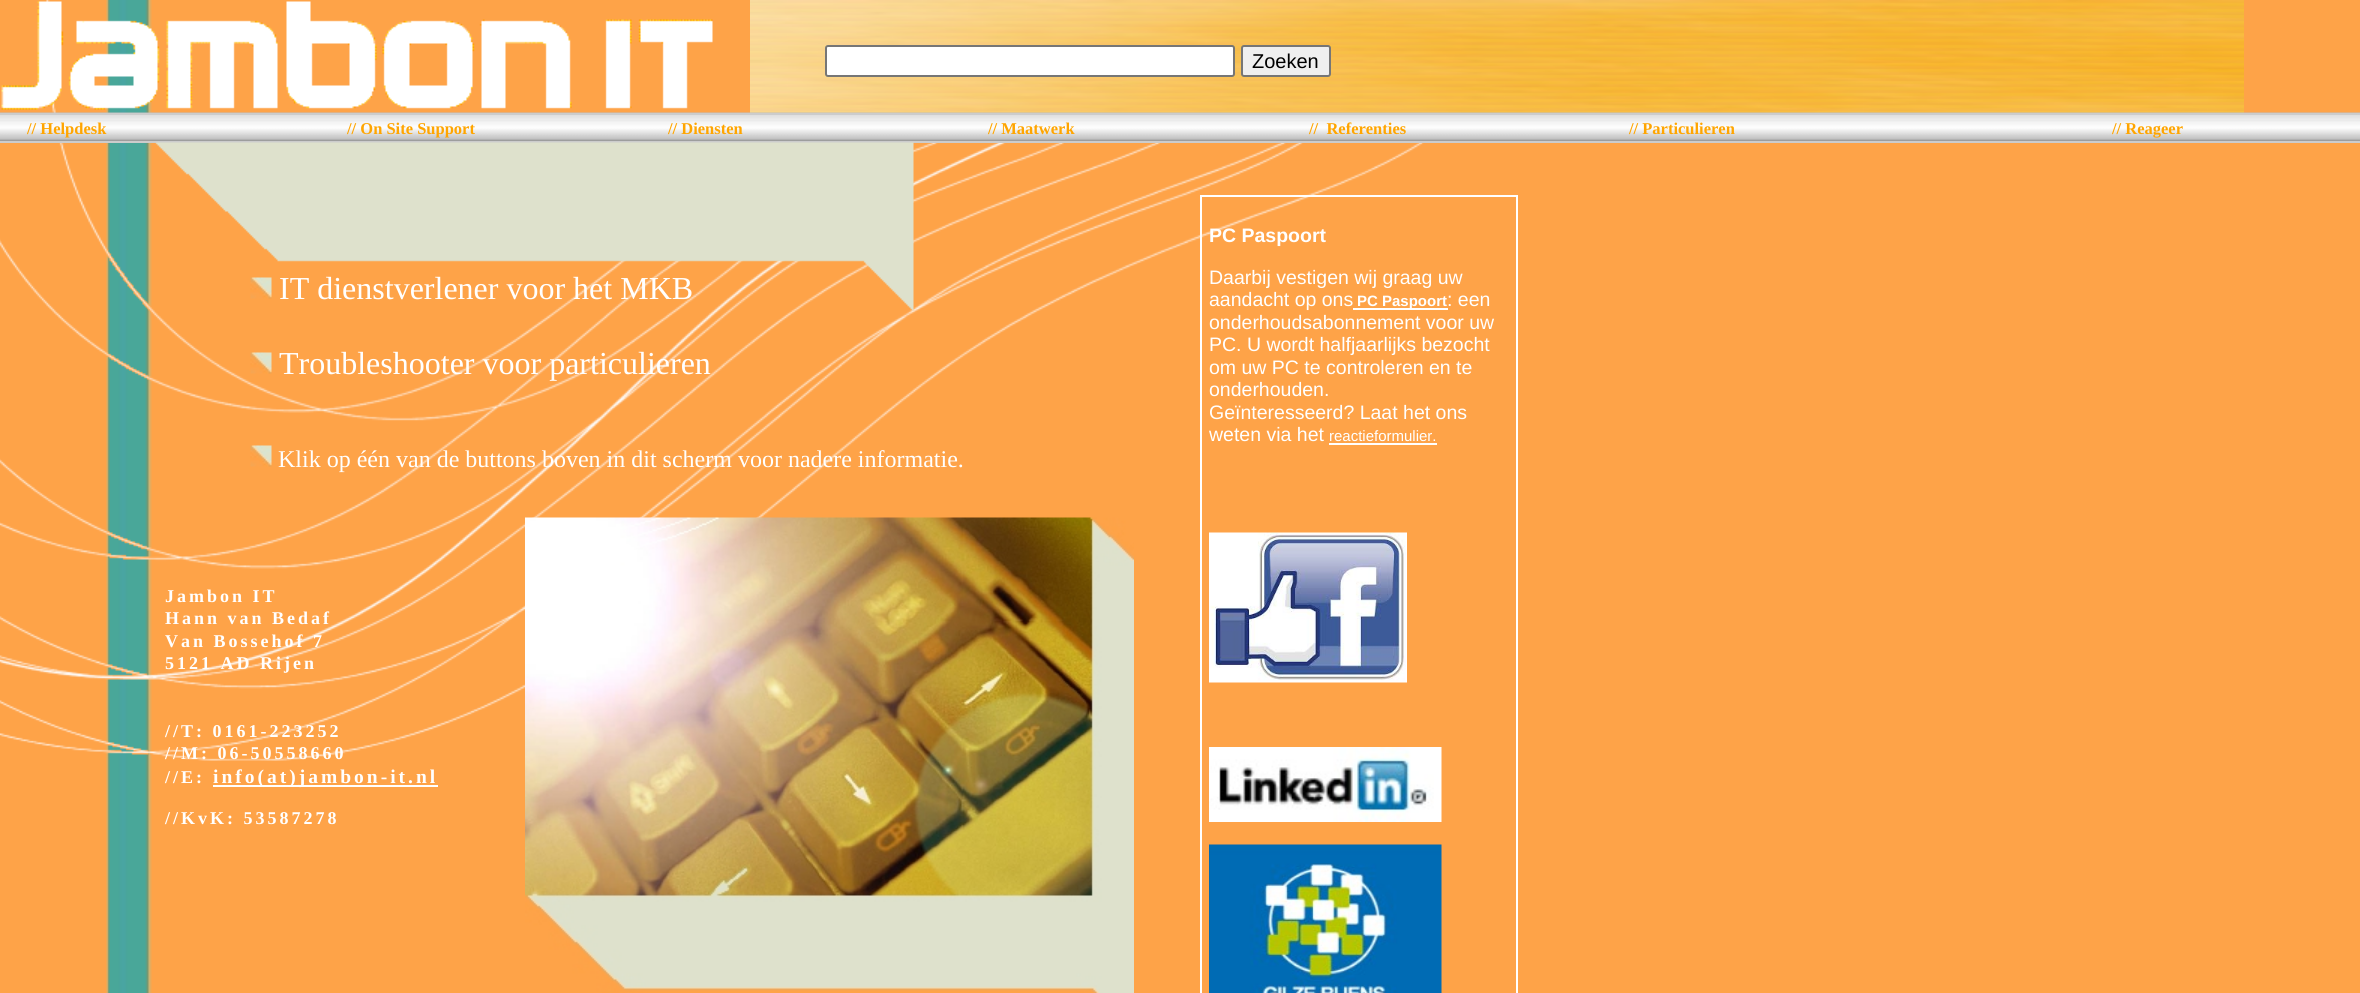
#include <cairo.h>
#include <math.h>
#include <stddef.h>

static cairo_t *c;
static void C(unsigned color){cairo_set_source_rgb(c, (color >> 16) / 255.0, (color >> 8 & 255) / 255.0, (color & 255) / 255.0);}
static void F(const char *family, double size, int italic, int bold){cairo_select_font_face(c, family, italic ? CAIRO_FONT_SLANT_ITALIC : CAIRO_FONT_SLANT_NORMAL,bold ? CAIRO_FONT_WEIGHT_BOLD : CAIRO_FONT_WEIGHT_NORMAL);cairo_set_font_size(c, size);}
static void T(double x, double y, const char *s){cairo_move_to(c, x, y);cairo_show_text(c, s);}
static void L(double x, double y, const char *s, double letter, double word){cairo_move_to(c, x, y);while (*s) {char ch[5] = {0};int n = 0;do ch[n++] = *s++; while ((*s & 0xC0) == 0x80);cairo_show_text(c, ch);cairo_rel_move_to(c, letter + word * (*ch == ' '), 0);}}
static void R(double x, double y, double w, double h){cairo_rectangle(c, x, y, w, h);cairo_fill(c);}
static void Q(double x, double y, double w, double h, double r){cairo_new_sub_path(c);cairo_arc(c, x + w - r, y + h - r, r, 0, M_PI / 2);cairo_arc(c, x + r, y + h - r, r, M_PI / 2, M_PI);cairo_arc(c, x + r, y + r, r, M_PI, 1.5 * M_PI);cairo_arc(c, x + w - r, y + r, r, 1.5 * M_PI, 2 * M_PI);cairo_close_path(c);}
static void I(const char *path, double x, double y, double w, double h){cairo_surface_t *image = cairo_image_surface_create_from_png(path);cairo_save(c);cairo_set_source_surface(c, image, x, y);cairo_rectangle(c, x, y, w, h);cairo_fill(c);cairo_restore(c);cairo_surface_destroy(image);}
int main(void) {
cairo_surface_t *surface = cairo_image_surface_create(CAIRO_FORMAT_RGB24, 2360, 993);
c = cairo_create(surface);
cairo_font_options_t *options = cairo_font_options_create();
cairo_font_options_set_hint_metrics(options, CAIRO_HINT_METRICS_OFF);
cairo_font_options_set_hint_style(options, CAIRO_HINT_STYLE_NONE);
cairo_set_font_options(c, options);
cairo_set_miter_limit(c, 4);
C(0xffffff);
cairo_paint(c);
I("1.png",0,0,2360,993);
I("2.png",0,0,1424,761);
I("3.png",750,0,1494,113);
I("4.png",1,1,712,109);
C(0xffffff);
Q(826,46,408,30,2);
cairo_fill_preserve(c);
C(0x767676);
cairo_stroke(c);
C(0xefefef);
Q(1242,46,88,30,2);
cairo_fill_preserve(c);
C(0x767676);
cairo_stroke(c);
F("Liberation Sans",20,0,0);
C(0x000000);
T(1252,68,"Zoeken");
I("5.png",0,112,2360,29);
C(0xcccccc);
R(0,113,2360,2);
R(0,141,2360,2);
F("Liberation Serif",16.5,0,1);
C(0xffa500);
T(27,134,"// Helpdesk");
T(347,134,"// On Site Support");
T(668,134,"// Diensten");
T(988,134,"// Maatwerk");
T(1309,134,"//  Referenties");
T(1629,134,"// Particulieren");
T(2112,134,"// Reageer");
I("6.png",155,142,759,169);
I("7.png",525,517,609,476);
cairo_rectangle(c,1201,196,316,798);
C(0xffffff);
cairo_stroke(c);
F("Liberation Sans",19.5,0,1);
T(1209,242,"PC Paspoort");
F("Liberation Sans",19.5,0,0);
T(1209,284,"Daarbij vestigen wij graag uw");
T(1209,306,"aandacht op ons");
R(1353,308,95,2);
F("Liberation Sans",15,0,1);
T(1357,306,"PC Paspoort");
F("Liberation Sans",19.5,0,0);
T(1447,306,": een");
T(1209,329,"onderhoudsabonnement voor uw");
T(1209,351,"PC. U wordt halfjaarlijks bezocht");
T(1209,374,"om uw PC te controleren en te");
T(1209,396,"onderhouden.");
T(1209,419,"Geïnteresseerd? Laat het ons");
T(1209,441,"weten via het");
F("Liberation Sans",15,0,0);
T(1329,441,"reactieformulier.");
R(1329,443,108,2);
I("8.png",1209,532,198,151);
I("9.png",1209,747,233,75);
I("10.png",1209,844,233,149);
I("11.png",250,277,22,22);
F("Liberation Serif",32,0,0);
T(279,299,"IT dienstverlener voor het MKB");
I("11.png",250,352,22,22);
T(279,374,"Troubleshooter voor particulieren");
I("11.png",250,445,22,22);
F("Liberation Serif",24,0,0);
T(278,467,"Klik op één van de buttons boven in dit scherm voor nadere informatie.");
F("Liberation Serif",18,0,1);
L(165,602,"Jambon IT",3,0);
L(165,624,"Hann van Bedaf",3,0);
L(165,647,"Van Bossehof 7",3,0);
L(165,669,"5121 AD Rijen",3,0);
L(165,737,"//T: 0161-223252",3,0);
L(165,759,"//M: 06-50558660",3,0);
L(165,783,"//E:",3,0);
R(213,785,225,2);
F("Liberation Serif",19.5,0,1);
L(213,783,"info(at)jambon-it.nl",3,0);
F("Liberation Serif",18,0,1);
L(165,824,"//KvK: 53587278",3,0);
cairo_surface_write_to_png(surface, "o.png");
cairo_font_options_destroy(options);
cairo_destroy(c);
cairo_surface_destroy(surface);
return 0;
}
